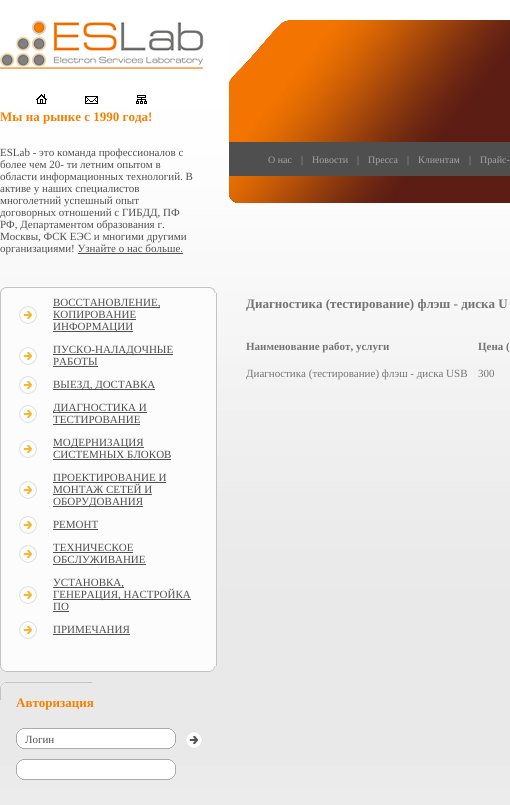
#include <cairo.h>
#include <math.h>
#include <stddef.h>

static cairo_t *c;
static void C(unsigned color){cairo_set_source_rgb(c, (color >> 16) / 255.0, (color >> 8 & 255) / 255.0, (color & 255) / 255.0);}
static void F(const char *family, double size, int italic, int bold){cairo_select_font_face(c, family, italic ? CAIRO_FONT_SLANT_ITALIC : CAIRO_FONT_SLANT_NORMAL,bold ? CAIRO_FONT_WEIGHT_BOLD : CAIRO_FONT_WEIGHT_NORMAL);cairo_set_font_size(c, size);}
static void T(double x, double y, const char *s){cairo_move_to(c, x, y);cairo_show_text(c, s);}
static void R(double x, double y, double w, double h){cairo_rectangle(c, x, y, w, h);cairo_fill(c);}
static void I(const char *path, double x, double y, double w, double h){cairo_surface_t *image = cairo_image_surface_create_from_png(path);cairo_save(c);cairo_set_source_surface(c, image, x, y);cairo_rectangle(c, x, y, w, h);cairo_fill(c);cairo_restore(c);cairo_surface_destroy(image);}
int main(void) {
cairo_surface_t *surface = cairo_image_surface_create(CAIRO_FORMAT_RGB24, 510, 805);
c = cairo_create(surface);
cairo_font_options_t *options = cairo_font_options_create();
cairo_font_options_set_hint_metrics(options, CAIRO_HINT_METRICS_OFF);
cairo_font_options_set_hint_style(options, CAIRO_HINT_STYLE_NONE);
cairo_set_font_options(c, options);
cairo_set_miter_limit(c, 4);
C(0xffffff);
cairo_paint(c);
I("1.png",0,0,510,805);
I("2.png",0,20,204,49);
I("3.png",36,94,11,10);
I("4.png",85,96,13,8);
I("5.png",136,95,11,9);
F("Liberation Serif",13,0,1);
C(0xf48000);
T(0,121,"Мы на рынке с 1990 года!");
F("Liberation Serif",11,0,0);
C(0x4f4f4f);
T(0,156,"ESLab - это команда профессионалов с");
T(0,168,"более чем 20- ти летним опытом в");
T(0,180,"области информационных технологий. В");
T(0,192,"активе у наших специалистов");
T(0,204,"многолетний успешный опыт");
T(0,216,"договорных отношений с ГИБДД, ПФ");
T(0,228,"РФ, Департаментом образования г.");
T(0,240,"Москвы, ФСК ЕЭС и многими другими");
T(0,252,"организациями! Узнайте о нас больше.");
R(78,253,105,1);
I("6.png",229,20,281,183);
R(229,142,281,34);
F("Liberation Serif",10,0,0);
C(0xa5a3a3);
T(268,163,"О нас");
T(301,163,"|");
T(312,163,"Новости");
T(357,163,"|");
T(368,163,"Пресса");
T(407,163,"|");
T(418,163,"Клиентам");
T(469,163,"|");
T(480,163,"Прайс-");
I("7.png",0,287,216,6);
C(0xfcfcfc);
R(1,293,215,373);
C(0xc4c2c2);
R(216,293,1,373);
R(0,293,1,373);
I("8.png",19,306,18,18);
C(0x4f4f4f);
R(53,307,107,1);
F("Liberation Serif",11,0,0);
T(53,306,"ВОССТАНОВЛЕНИЕ,");
T(53,318,"КОПИРОВАНИЕ");
R(53,319,83,1);
R(53,331,80,1);
T(53,330,"ИНФОРМАЦИИ");
I("8.png",19,347,18,18);
R(53,354,120,1);
T(53,353,"ПУСКО-НАЛАДОЧНЫЕ");
T(53,365,"РАБОТЫ");
R(53,366,45,1);
I("8.png",19,376,18,18);
R(53,389,102,1);
T(53,388,"ВЫЕЗД, ДОСТАВКА");
I("8.png",19,405,18,18);
R(53,412,94,1);
T(53,411,"ДИАГНОСТИКА И");
T(53,423,"ТЕСТИРОВАНИЕ");
R(53,424,87,1);
I("8.png",19,440,18,18);
R(53,447,91,1);
T(53,446,"МОДЕРНИЗАЦИЯ");
T(53,458,"СИСТЕМНЫХ БЛОКОВ");
R(53,459,118,1);
I("8.png",19,481,18,18);
T(53,481,"ПРОЕКТИРОВАНИЕ И");
R(53,482,113,1);
T(53,493,"МОНТАЖ СЕТЕЙ И");
R(53,494,99,1);
R(53,506,90,1);
T(53,505,"ОБОРУДОВАНИЯ");
I("8.png",19,516,18,18);
T(53,528,"РЕМОНТ");
R(53,529,45,1);
I("8.png",19,545,18,18);
T(53,551,"ТЕХНИЧЕСКОЕ");
R(53,552,80,1);
T(53,563,"ОБСЛУЖИВАНИЕ");
R(53,564,93,1);
I("8.png",19,586,18,18);
R(53,587,71,1);
T(53,586,"УСТАНОВКА,");
R(53,599,138,1);
T(53,598,"ГЕНЕРАЦИЯ, НАСТРОЙКА");
T(53,610,"ПО");
R(53,611,16,1);
I("8.png",19,621,18,18);
T(53,633,"ПРИМЕЧАНИЯ");
R(53,634,77,1);
I("9.png",0,666,216,6);
I("10.png",0,682,92,18);
F("Liberation Serif",13,0,1);
C(0xf48000);
T(16,707,"Авторизация");
I("11.png",16,729,6,19);
C(0xffffff);
R(22,729,148,19);
C(0xababab);
R(22,728,148,1);
R(22,748,148,1);
F("Liberation Serif",11,0,0);
C(0x4f4f4f);
T(25,743,"Логин");
I("12.png",170,729,6,19);
I("13.png",185,731,18,18);
I("14.png",16,760,6,19);
C(0xffffff);
R(22,760,148,19);
C(0xababab);
R(22,759,148,1);
R(22,779,148,1);
I("15.png",170,760,6,19);
F("Liberation Serif",13,0,1);
C(0x747474);
T(246,308,"Диагностика (тестирование) флэш - диска U");
F("Liberation Serif",11,0,1);
T(246,350,"Наименование работ, услуги");
T(478,350,"Цена (");
F("Liberation Serif",11,0,0);
T(246,377,"Диагностика (тестирование) флэш - диска USB");
T(478,377,"300");
cairo_surface_write_to_png(surface, "o.png");
cairo_font_options_destroy(options);
cairo_destroy(c);
cairo_surface_destroy(surface);
return 0;
}
